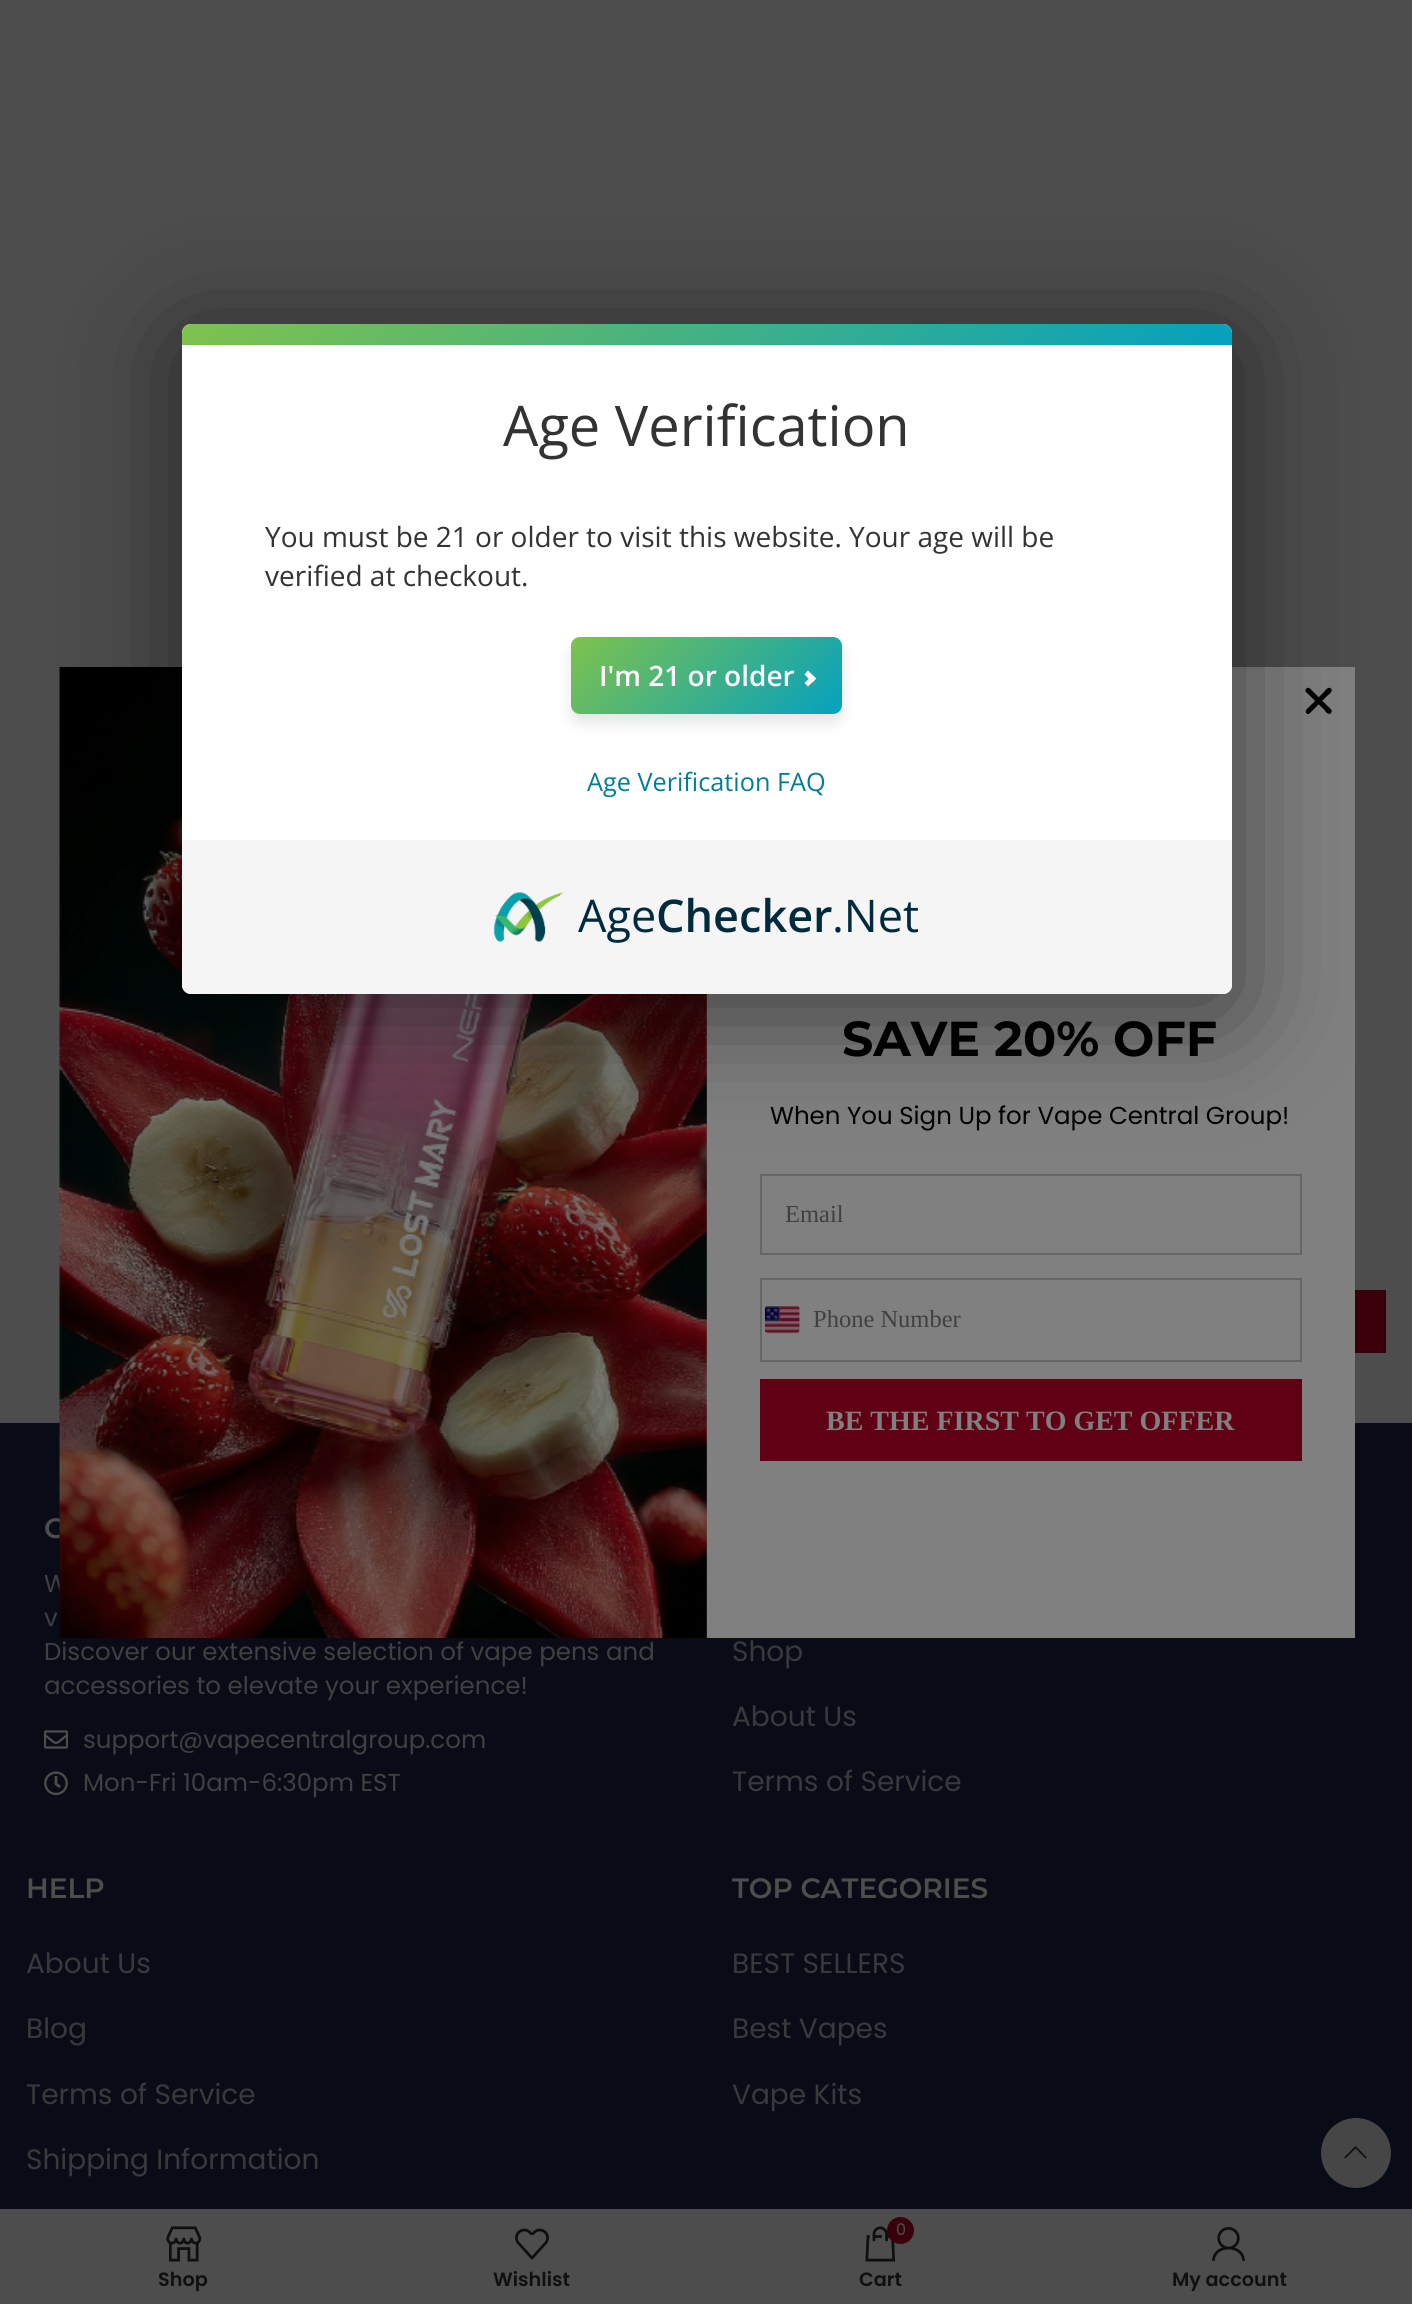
#include <cairo.h>
#include <math.h>
#include <stddef.h>

static cairo_t *c;
static void C(unsigned color){cairo_set_source_rgb(c, (color >> 16) / 255.0, (color >> 8 & 255) / 255.0, (color & 255) / 255.0);}
static void F(const char *family, double size, int italic, int bold){cairo_select_font_face(c, family, italic ? CAIRO_FONT_SLANT_ITALIC : CAIRO_FONT_SLANT_NORMAL,bold ? CAIRO_FONT_WEIGHT_BOLD : CAIRO_FONT_WEIGHT_NORMAL);cairo_set_font_size(c, size);}
static void T(double x, double y, const char *s){cairo_move_to(c, x, y);cairo_show_text(c, s);}
static void R(double x, double y, double w, double h){cairo_rectangle(c, x, y, w, h);cairo_fill(c);}
static void Q(double x, double y, double w, double h, double r){cairo_new_sub_path(c);cairo_arc(c, x + w - r, y + h - r, r, 0, M_PI / 2);cairo_arc(c, x + r, y + h - r, r, M_PI / 2, M_PI);cairo_arc(c, x + r, y + r, r, M_PI, 1.5 * M_PI);cairo_arc(c, x + w - r, y + r, r, 1.5 * M_PI, 2 * M_PI);cairo_close_path(c);}
static void S(double x, double y, double w, double h, double r, double blur, double alpha){cairo_push_group_with_content(c, CAIRO_CONTENT_ALPHA);cairo_set_operator(c, CAIRO_OPERATOR_SOURCE);for (int i = 15; i >= -15 && fmin(w, h) + blur * i / 3 > 0; i -= 2) {double e = blur * i / 6;cairo_set_source_rgba(c, 0, 0, 0, alpha * erfc((i - 1) / 8.5) / 2);Q(x - e, y - e, w + 2 * e, h + 2 * e, fmax(0, fmin(r + e + blur * .6, fmin(w, h) / 2 + e)));cairo_fill(c);}cairo_pattern_t *soft = cairo_pop_group(c);cairo_mask(c, soft);cairo_pattern_destroy(soft);}
static void I(const char *path, double x, double y, double w, double h){cairo_surface_t *image = cairo_image_surface_create_from_png(path);cairo_save(c);cairo_set_source_surface(c, image, x, y);cairo_rectangle(c, x, y, w, h);cairo_fill(c);cairo_restore(c);cairo_surface_destroy(image);}
int main(void) {
cairo_surface_t *surface = cairo_image_surface_create(CAIRO_FORMAT_RGB24, 1412, 2304);
c = cairo_create(surface);
cairo_font_options_t *options = cairo_font_options_create();
cairo_font_options_set_hint_metrics(options, CAIRO_HINT_METRICS_OFF);
cairo_font_options_set_hint_style(options, CAIRO_HINT_STYLE_NONE);
cairo_set_font_options(c, options);
cairo_set_miter_limit(c, 4);
cairo_pattern_t *gradient;
C(0x4d4d4d);
cairo_paint(c);
C(0x090b17);
R(0,1423,1412,786);
F("Montserrat SemiBold",28,0,0);
C(0x4d4d4d);
T(44,1538,"G");
F("Poppins",24.5,0,0);
C(0x404042);
T(44,1592,"W");
C(0x808080);
R(60,667,1295,971);
C(0x000000);
cairo_new_path(c);
cairo_move_to(c,1310,688.5);
cairo_line_to(c,1327.5,706);
cairo_curve_to(c,1329,707.5,1333.5,710.5,1331,713);
cairo_curve_to(c,1328.5,716,1325,711,1324,709.5);
cairo_line_to(c,1305.5,691.5);
cairo_curve_to(c,1304.5,689,1308,686.5,1310,688.5);
cairo_close_path(c);
cairo_fill(c);
cairo_new_path(c);
cairo_move_to(c,1306.5,709.5);
cairo_line_to(c,1324,692);
cairo_curve_to(c,1325,690.5,1328.5,686,1331,688.5);
cairo_curve_to(c,1333.5,691,1329,694.5,1327.5,695.5);
cairo_line_to(c,1309,714);
cairo_curve_to(c,1306.5,715,1304.5,711.5,1306.5,709.5);
cairo_close_path(c);
cairo_fill(c);
I("2.png",59,667,648,971);
cairo_rectangle(c,761,1175,540,79);
C(0x666666);
cairo_stroke(c);
C(0x000000);
S(177,336,1060,681,14,56,.5);
C(0xffffff);
Q(182,324,1050,670,9);
cairo_fill(c);
gradient = cairo_pattern_create_linear(439,67,975,602);
cairo_pattern_add_color_stop_rgba(gradient,0,0.498,0.761,0.298,1);
cairo_pattern_add_color_stop_rgba(gradient,1,0.016,0.631,0.749,1);
cairo_set_source(c,gradient);
cairo_pattern_destroy(gradient);
cairo_new_path(c);
cairo_move_to(c,191,324);
cairo_line_to(c,1223,324);
cairo_curve_to(c,1228,324,1232,328,1232,333);
cairo_line_to(c,1232,345);
cairo_line_to(c,182,345);
cairo_line_to(c,182,333);
cairo_curve_to(c,182,328,186,324,191,324);
cairo_close_path(c);
cairo_fill(c);
F("Open Sans",56,0,0);
C(0x333333);
T(503,446,"Age Verification");
F("Open Sans",28,0,0);
T(265,547,"You must be 21 or older to visit this website. Your age will be");
T(265,586,"verified at checkout.");
C(0x000000);
S(571,646,271,77,9,7,.1);
gradient = cairo_pattern_create_linear(619,588,793,763);
cairo_pattern_add_color_stop_rgba(gradient,0,0.498,0.761,0.298,1);
cairo_pattern_add_color_stop_rgba(gradient,1,0.016,0.631,0.749,1);
cairo_set_source(c,gradient);
cairo_pattern_destroy(gradient);
Q(571,637,271,77,9);
cairo_fill(c);
F("Open Sans SemiBold",28,0,0);
C(0xffffff);
T(599,686,"I'm 21 or older");
cairo_new_path(c);
cairo_move_to(c,804.5,674.5);
cairo_line_to(c,808,670.5);
cairo_line_to(c,816,678.5);
cairo_line_to(c,812.5,682.5);
cairo_close_path(c);
cairo_fill(c);
cairo_new_path(c);
cairo_move_to(c,804.5,683);
cairo_line_to(c,812.5,675);
cairo_line_to(c,816,678.5);
cairo_line_to(c,808,686.5);
cairo_close_path(c);
cairo_fill(c);
F("Open Sans",25.25,0,0);
C(0x037d96);
T(587,791,"Age Verification FAQ");
C(0xf5f5f5);
cairo_new_path(c);
cairo_move_to(c,182,840);
cairo_line_to(c,1232,840);
cairo_line_to(c,1232,985);
cairo_curve_to(c,1232,990,1228,994,1223,994);
cairo_line_to(c,191,994);
cairo_curve_to(c,186,994,182,990,182,985);
cairo_close_path(c);
cairo_fill(c);
I("1.png",493,892,70,50);
F("Open Sans",45,0,0);
C(0x002b3e);
T(578,932,"Age");
F("Open Sans SemiBold",45,0,0);
T(656,932,"Checker");
F("Open Sans",45,0,0);
T(832,932,".Net");
F("Montserrat",49,0,1);
C(0x000000);
T(842,1056,"SAVE 20% OFF");
F("Poppins",24.5,0,0);
T(770,1124,"When You Sign Up for Vape Central Group!");
F("Liberation Serif",24.5,0,0);
C(0x404042);
T(785,1222,"Email");
I("3.png",765,1306,35,28);
cairo_rectangle(c,761,1279,540,82);
C(0x666666);
cairo_stroke(c);
C(0x404042);
T(813,1327,"Phone Number");
C(0x5f0014);
R(760,1379,542,82);
F("Liberation Serif",28,0,1);
C(0x808080);
T(826,1430,"BE THE FIRST TO GET OFFER");
C(0x39000c);
R(1355,1290,31,63);
F("Poppins",24.5,0,0);
C(0x404042);
T(44,1626,"v");
T(44,1660,"Discover our extensive selection of vape pens and");
T(44,1694,"accessories to elevate your experience!");
I("4.png",44,1730,24,19);
T(83,1748,"support@vapecentralgroup.com");
I("5.png",44,1771,24,25);
T(83,1791,"Mon-Fri 10am-6:30pm EST");
F("Poppins",28,0,0);
C(0x39393d);
T(732,1661,"Shop");
T(732,1726,"About Us");
T(732,1791,"Terms of Service");
F("Montserrat SemiBold",28,0,0);
C(0x4d4d4d);
T(26,1898,"HELP");
F("Poppins",28,0,0);
C(0x39393d);
T(26,1973,"About Us");
T(26,2038,"Blog");
T(26,2104,"Terms of Service");
T(26,2169,"Shipping Information");
F("Montserrat SemiBold",28,0,0);
C(0x4d4d4d);
T(732,1898,"TOP CATEGORIES");
F("Poppins",28,0,0);
C(0x39393d);
T(732,1973,"BEST SELLERS");
T(732,2038,"Best Vapes");
T(732,2104,"Vape Kits");
cairo_set_source_rgba(c,0.302,0.302,0.302,0.9);
cairo_new_path(c);
cairo_arc(c,1356,2153,35,0,2 * M_PI);
cairo_fill(c);
C(0x101010);
cairo_new_path(c);
cairo_move_to(c,1365.5,2158.5);
cairo_line_to(c,1367,2157.5);
cairo_line_to(c,1355.5,2146);
cairo_line_to(c,1344,2157.5);
cairo_line_to(c,1345.5,2158.5);
cairo_line_to(c,1355.5,2148.5);
cairo_close_path(c);
cairo_fill(c);
I("6.png",166,2226,36,36);
F("Poppins SemiBold",19.25,0,0);
T(158,2286,"Shop");
I("7.png",515,2228,34,32);
T(493,2286,"Wishlist");
I("8.png",865,2226,31,36);
C(0x39000c);
cairo_arc(c,900.5,2230.5,13.5,0,2 * M_PI);
cairo_fill(c);
F("Poppins",16,0,0);
C(0x4d4d4d);
T(896,2235,"0");
F("Poppins SemiBold",19.25,0,0);
C(0x101010);
T(859,2286,"Cart");
I("9.png",1212,2227,33,34);
T(1172,2286,"My account");
cairo_surface_write_to_png(surface, "o.png");
cairo_font_options_destroy(options);
cairo_destroy(c);
cairo_surface_destroy(surface);
return 0;
}
